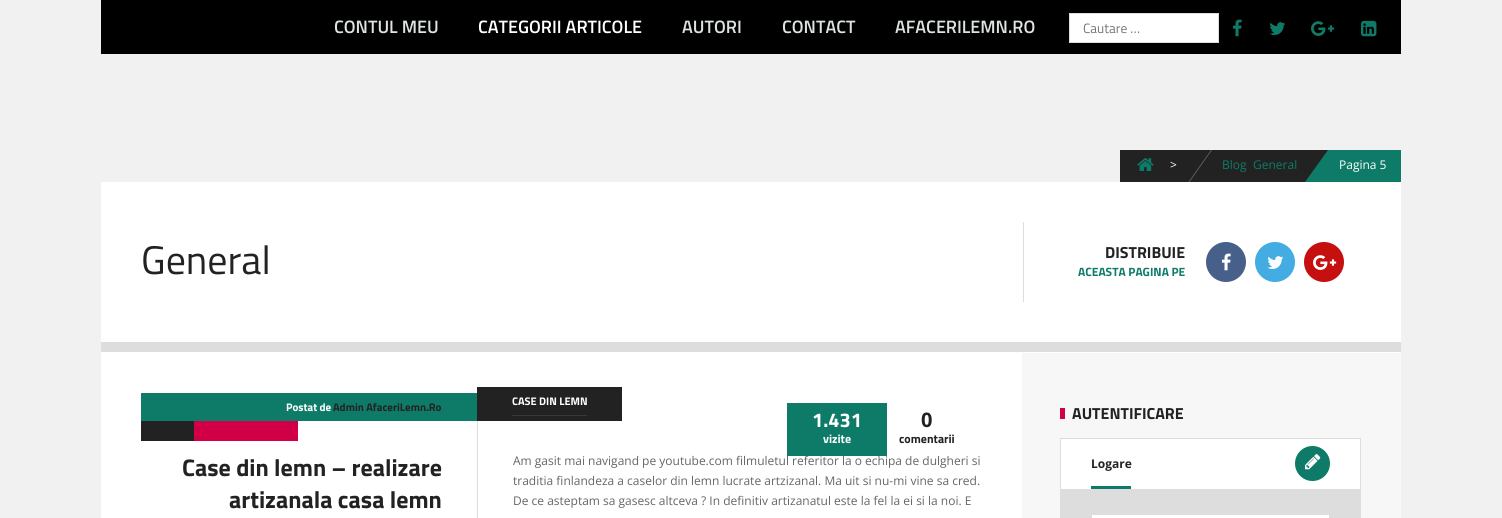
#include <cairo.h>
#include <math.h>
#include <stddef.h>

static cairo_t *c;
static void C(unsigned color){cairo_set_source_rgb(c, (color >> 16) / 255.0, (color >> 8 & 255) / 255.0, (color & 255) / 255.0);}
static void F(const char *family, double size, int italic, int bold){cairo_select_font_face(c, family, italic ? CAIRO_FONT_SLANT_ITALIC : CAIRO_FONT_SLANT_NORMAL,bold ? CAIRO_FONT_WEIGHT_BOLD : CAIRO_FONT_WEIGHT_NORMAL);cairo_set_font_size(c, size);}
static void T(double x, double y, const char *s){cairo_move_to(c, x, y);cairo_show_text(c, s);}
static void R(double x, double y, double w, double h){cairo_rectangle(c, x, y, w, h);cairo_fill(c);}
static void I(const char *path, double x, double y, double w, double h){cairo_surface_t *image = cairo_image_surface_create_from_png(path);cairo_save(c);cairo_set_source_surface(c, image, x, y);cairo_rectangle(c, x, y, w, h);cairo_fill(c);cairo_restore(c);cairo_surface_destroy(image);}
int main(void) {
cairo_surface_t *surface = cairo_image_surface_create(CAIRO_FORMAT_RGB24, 1502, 518);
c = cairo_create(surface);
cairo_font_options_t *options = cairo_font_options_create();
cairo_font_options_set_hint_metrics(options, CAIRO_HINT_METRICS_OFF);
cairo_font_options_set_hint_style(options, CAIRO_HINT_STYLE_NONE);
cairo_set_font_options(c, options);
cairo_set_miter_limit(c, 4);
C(0xf1f1f1);
cairo_paint(c);
C(0x000000);
R(101,0,1300,54);
F("Titillium Web SemiBold",18,0,0);
C(0xdee2e3);
T(334,33,"CONTUL MEU");
C(0xffffff);
T(478,33,"CATEGORII ARTICOLE");
C(0xdee2e3);
T(682,33,"AUTORI");
T(782,33,"CONTACT");
T(895,33,"AFACERILEMN.RO");
C(0xffffff);
cairo_rectangle(c,1069.5,13.5,149,29);
cairo_fill_preserve(c);
C(0xdddddd);
cairo_set_line_width(c,1);
cairo_stroke(c);
F("Titillium Web",13.5,0,0);
C(0x757575);
T(1083,33,"Cautare …");
I("1.png",1232,19,10,18);
I("2.png",1269,22,17,13);
I("3.png",1311,21,24,15);
I("4.png",1361,20,16,17);
C(0x222222);
R(1120,150,208,32);
I("5.png",1137,158,17,13);
F("Open Sans",12,0,0);
C(0xffffff);
T(1170,169,">");
C(0x646464);
cairo_new_path(c);
cairo_move_to(c,1211,150);
cairo_line_to(c,1212,150);
cairo_line_to(c,1189.5,182);
cairo_line_to(c,1188.5,182);
cairo_close_path(c);
cairo_fill(c);
C(0x0e7b68);
T(1222,169,"Blog");
T(1253,169,"General");
R(1335,150,66,32);
cairo_new_path(c);
cairo_move_to(c,1328,150);
cairo_line_to(c,1358,150);
cairo_line_to(c,1335,182);
cairo_line_to(c,1305,182);
cairo_close_path(c);
cairo_fill(c);
C(0xffffff);
T(1339,169,"Pagina 5");
R(101,182,1300,336);
C(0xdddddd);
R(101,342,1300,10);
F("Titillium Web",40,0,0);
C(0x222222);
T(141,274,"General");
C(0xdddddd);
R(1023,222,1,80);
F("Titillium Web",16,0,1);
C(0x222222);
T(1105,258,"DISTRIBUIE");
F("Titillium Web",12,0,1);
C(0x0e7b68);
T(1078,276,"ACEASTA PAGINA PE");
C(0x47608a);
cairo_new_path(c);
cairo_arc(c,1226,262,20,0,2 * M_PI);
cairo_fill(c);
I("6.png",1221,253,10,18);
C(0x42ace3);
cairo_arc(c,1275,262,20,0,2 * M_PI);
cairo_fill(c);
I("7.png",1267,256,17,13);
C(0xc60f0f);
cairo_arc(c,1324,262,20,0,2 * M_PI);
cairo_fill(c);
I("8.png",1313,255,24,15);
C(0x222222);
R(477,387,145,34);
F("Titillium Web",11,0,1);
C(0xffffff);
T(512,405,"CASE DIN LEMN");
C(0x383838);
R(512,415,75,1);
C(0x0e7b68);
R(141,393,336,28);
C(0xffffff);
T(286,411,"Postat de");
C(0x222222);
T(333,411,"Admin AfaceriLemn.Ro");
C(0xd10046);
R(194,421,104,20);
C(0x222222);
R(141,421,53,20);
F("Open Sans",12,0,0);
C(0x666666);
T(513,465,"Am gasit mai navigand pe youtube.com filmuletul referitor la o echipa de dulgheri si");
C(0x0e7b68);
R(787,403,100,53);
F("Titillium Web",20,0,1);
C(0xffffff);
T(812,427,"1.431");
F("Titillium Web",12,0,1);
T(823,443,"vizite");
R(910,455,39,1);
F("Open Sans",20,0,1);
C(0x222222);
T(921,427,"0");
F("Titillium Web",12,0,1);
T(899,443,"comentarii");
F("Titillium Web",24,0,1);
T(182,476,"Case din lemn – realizare");
T(229,508,"artizanala casa lemn");
C(0xdddddd);
R(477,421,1,97);
F("Open Sans",12,0,0);
C(0x666666);
T(513,485,"traditia finlandeza a caselor din lemn lucrate artzizanal. Ma uit si nu-mi vine sa cred.");
T(513,505,"De ce asteptam sa gasesc altceva ? In definitiv artizanatul este la fel la ei si la noi. E");
C(0xf7f7f7);
R(1022,353,379,165);
C(0xd10046);
R(1060,408,5,11);
F("Titillium Web",16,0,1);
C(0x222222);
T(1072,419,"AUTENTIFICARE");
C(0xffffff);
R(1061,439,299,50);
cairo_rectangle(c,1060.5,438.5,300,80);
C(0xdddddd);
cairo_stroke(c);
C(0x0e7b68);
R(1091,486,40,3);
F("Open Sans",12,0,1);
C(0x222222);
T(1091,468,"Logare");
C(0x0e7b68);
cairo_new_path(c);
cairo_arc(c,1312.5,463.5,17.5,0,2 * M_PI);
cairo_fill(c);
I("9.png",1305,454,16,16);
C(0xdddddd);
R(1061,489,299,29);
C(0xffffff);
cairo_rectangle(c,1091.5,514.5,238,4);
cairo_fill_preserve(c);
C(0xdddddd);
cairo_stroke(c);
cairo_surface_write_to_png(surface, "o.png");
cairo_font_options_destroy(options);
cairo_destroy(c);
cairo_surface_destroy(surface);
return 0;
}
